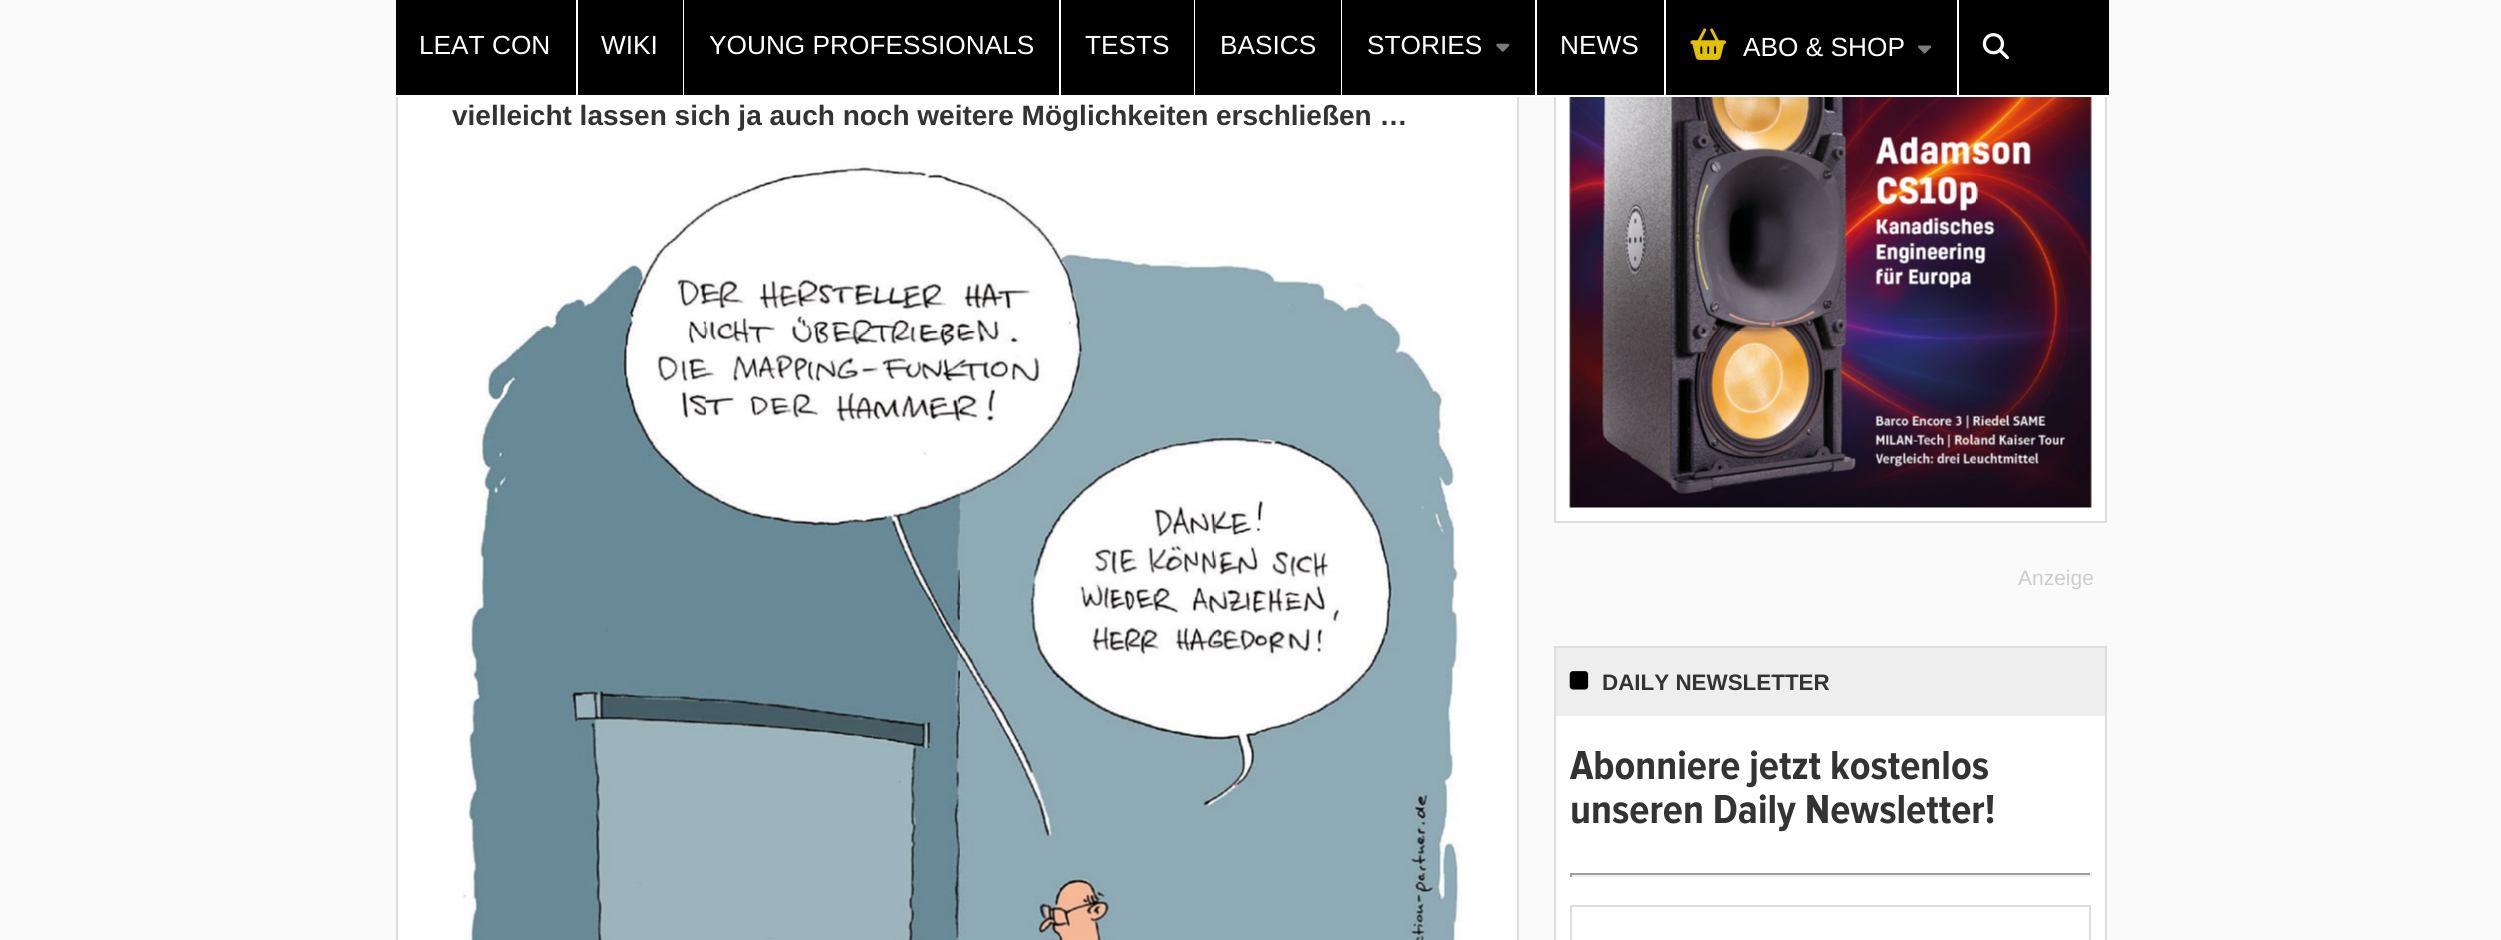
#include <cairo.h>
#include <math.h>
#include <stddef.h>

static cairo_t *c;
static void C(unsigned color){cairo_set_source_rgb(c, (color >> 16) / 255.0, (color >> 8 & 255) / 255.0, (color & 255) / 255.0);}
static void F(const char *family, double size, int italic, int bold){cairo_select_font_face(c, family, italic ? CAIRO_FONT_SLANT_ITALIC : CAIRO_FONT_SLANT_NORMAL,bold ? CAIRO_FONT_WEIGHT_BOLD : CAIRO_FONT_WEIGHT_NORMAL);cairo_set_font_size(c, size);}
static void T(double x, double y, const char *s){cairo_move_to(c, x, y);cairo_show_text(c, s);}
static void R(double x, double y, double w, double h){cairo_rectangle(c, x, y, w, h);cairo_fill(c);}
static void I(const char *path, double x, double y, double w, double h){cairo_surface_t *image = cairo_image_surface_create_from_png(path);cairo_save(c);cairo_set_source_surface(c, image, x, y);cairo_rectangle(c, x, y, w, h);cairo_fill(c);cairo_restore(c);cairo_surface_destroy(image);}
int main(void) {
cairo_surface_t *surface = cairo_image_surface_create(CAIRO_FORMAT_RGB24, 2501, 940);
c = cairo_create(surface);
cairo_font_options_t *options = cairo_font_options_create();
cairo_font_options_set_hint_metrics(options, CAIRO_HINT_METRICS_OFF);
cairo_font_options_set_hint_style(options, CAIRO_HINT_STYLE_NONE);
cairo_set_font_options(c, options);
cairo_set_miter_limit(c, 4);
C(0xfafafa);
cairo_paint(c);
C(0xffffff);
R(398,97,1119,843);
cairo_rectangle(c,397,-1,1121,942);
C(0xdddddd);
cairo_stroke(c);
C(0xffffff);
R(1556,97,549,424);
cairo_rectangle(c,1555,-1,551,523);
C(0xdddddd);
cairo_stroke(c);
C(0x000000);
R(396,0,1713,95);
C(0xffffff);
R(396,95,1713,2);
R(576,0,2,95);
F("Liberation Sans",26.25,0,0);
T(419,54,"LEAT CON");
R(683,0,1,95);
T(601,54,"WIKI");
R(1059,0,2,95);
T(709,54,"YOUNG PROFESSIONALS");
R(1194,0,1,95);
T(1085,54,"TESTS");
R(1341,0,1,95);
T(1220,54,"BASICS");
R(1535,0,2,95);
T(1367,54,"STORIES");
I("1.png",1496,43,14,9);
R(1664,0,2,95);
T(1560,54,"NEWS");
R(1957,0,2,95);
I("2.png",1690,28,36,32);
T(1743,56,"ABO & SHOP");
I("3.png",1918,45,14,9);
I("4.png",1982,33,27,27);
F("Liberation Sans",28,0,1);
C(0x333333);
T(452,125,"vielleicht lassen sich ja auch noch weitere Möglichkeiten erschließen …");
I("5.png",462,163,1000,777);
I("6.png",1569,97,523,411);
F("Liberation Sans",21,0,0);
C(0xcccccc);
T(2018,585,"Anzeige");
C(0xffffff);
R(1556,716,549,224);
cairo_rectangle(c,1555,647,551,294);
C(0xdddddd);
cairo_stroke(c);
C(0xeeeeee);
R(1556,648,549,68);
I("7.png",1569,671,20,19);
F("Liberation Sans",22.4,0,1);
C(0x333333);
T(1602,690,"DAILY NEWSLETTER");
F("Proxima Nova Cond",42,0,1);
T(1570,779,"Abonniere jetzt kostenlos");
T(1570,823,"unseren Daily Newsletter!");
C(0x9f9f9f);
R(1570,873,521,2);
C(0xeeeeee);
R(2090,873,2,4);
R(1570,875,521,2);
C(0x9f9f9f);
R(1570,873,2,4);
cairo_rectangle(c,1571,906,519,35);
C(0xdddddd);
cairo_stroke(c);
cairo_surface_write_to_png(surface, "o.png");
cairo_font_options_destroy(options);
cairo_destroy(c);
cairo_surface_destroy(surface);
return 0;
}
